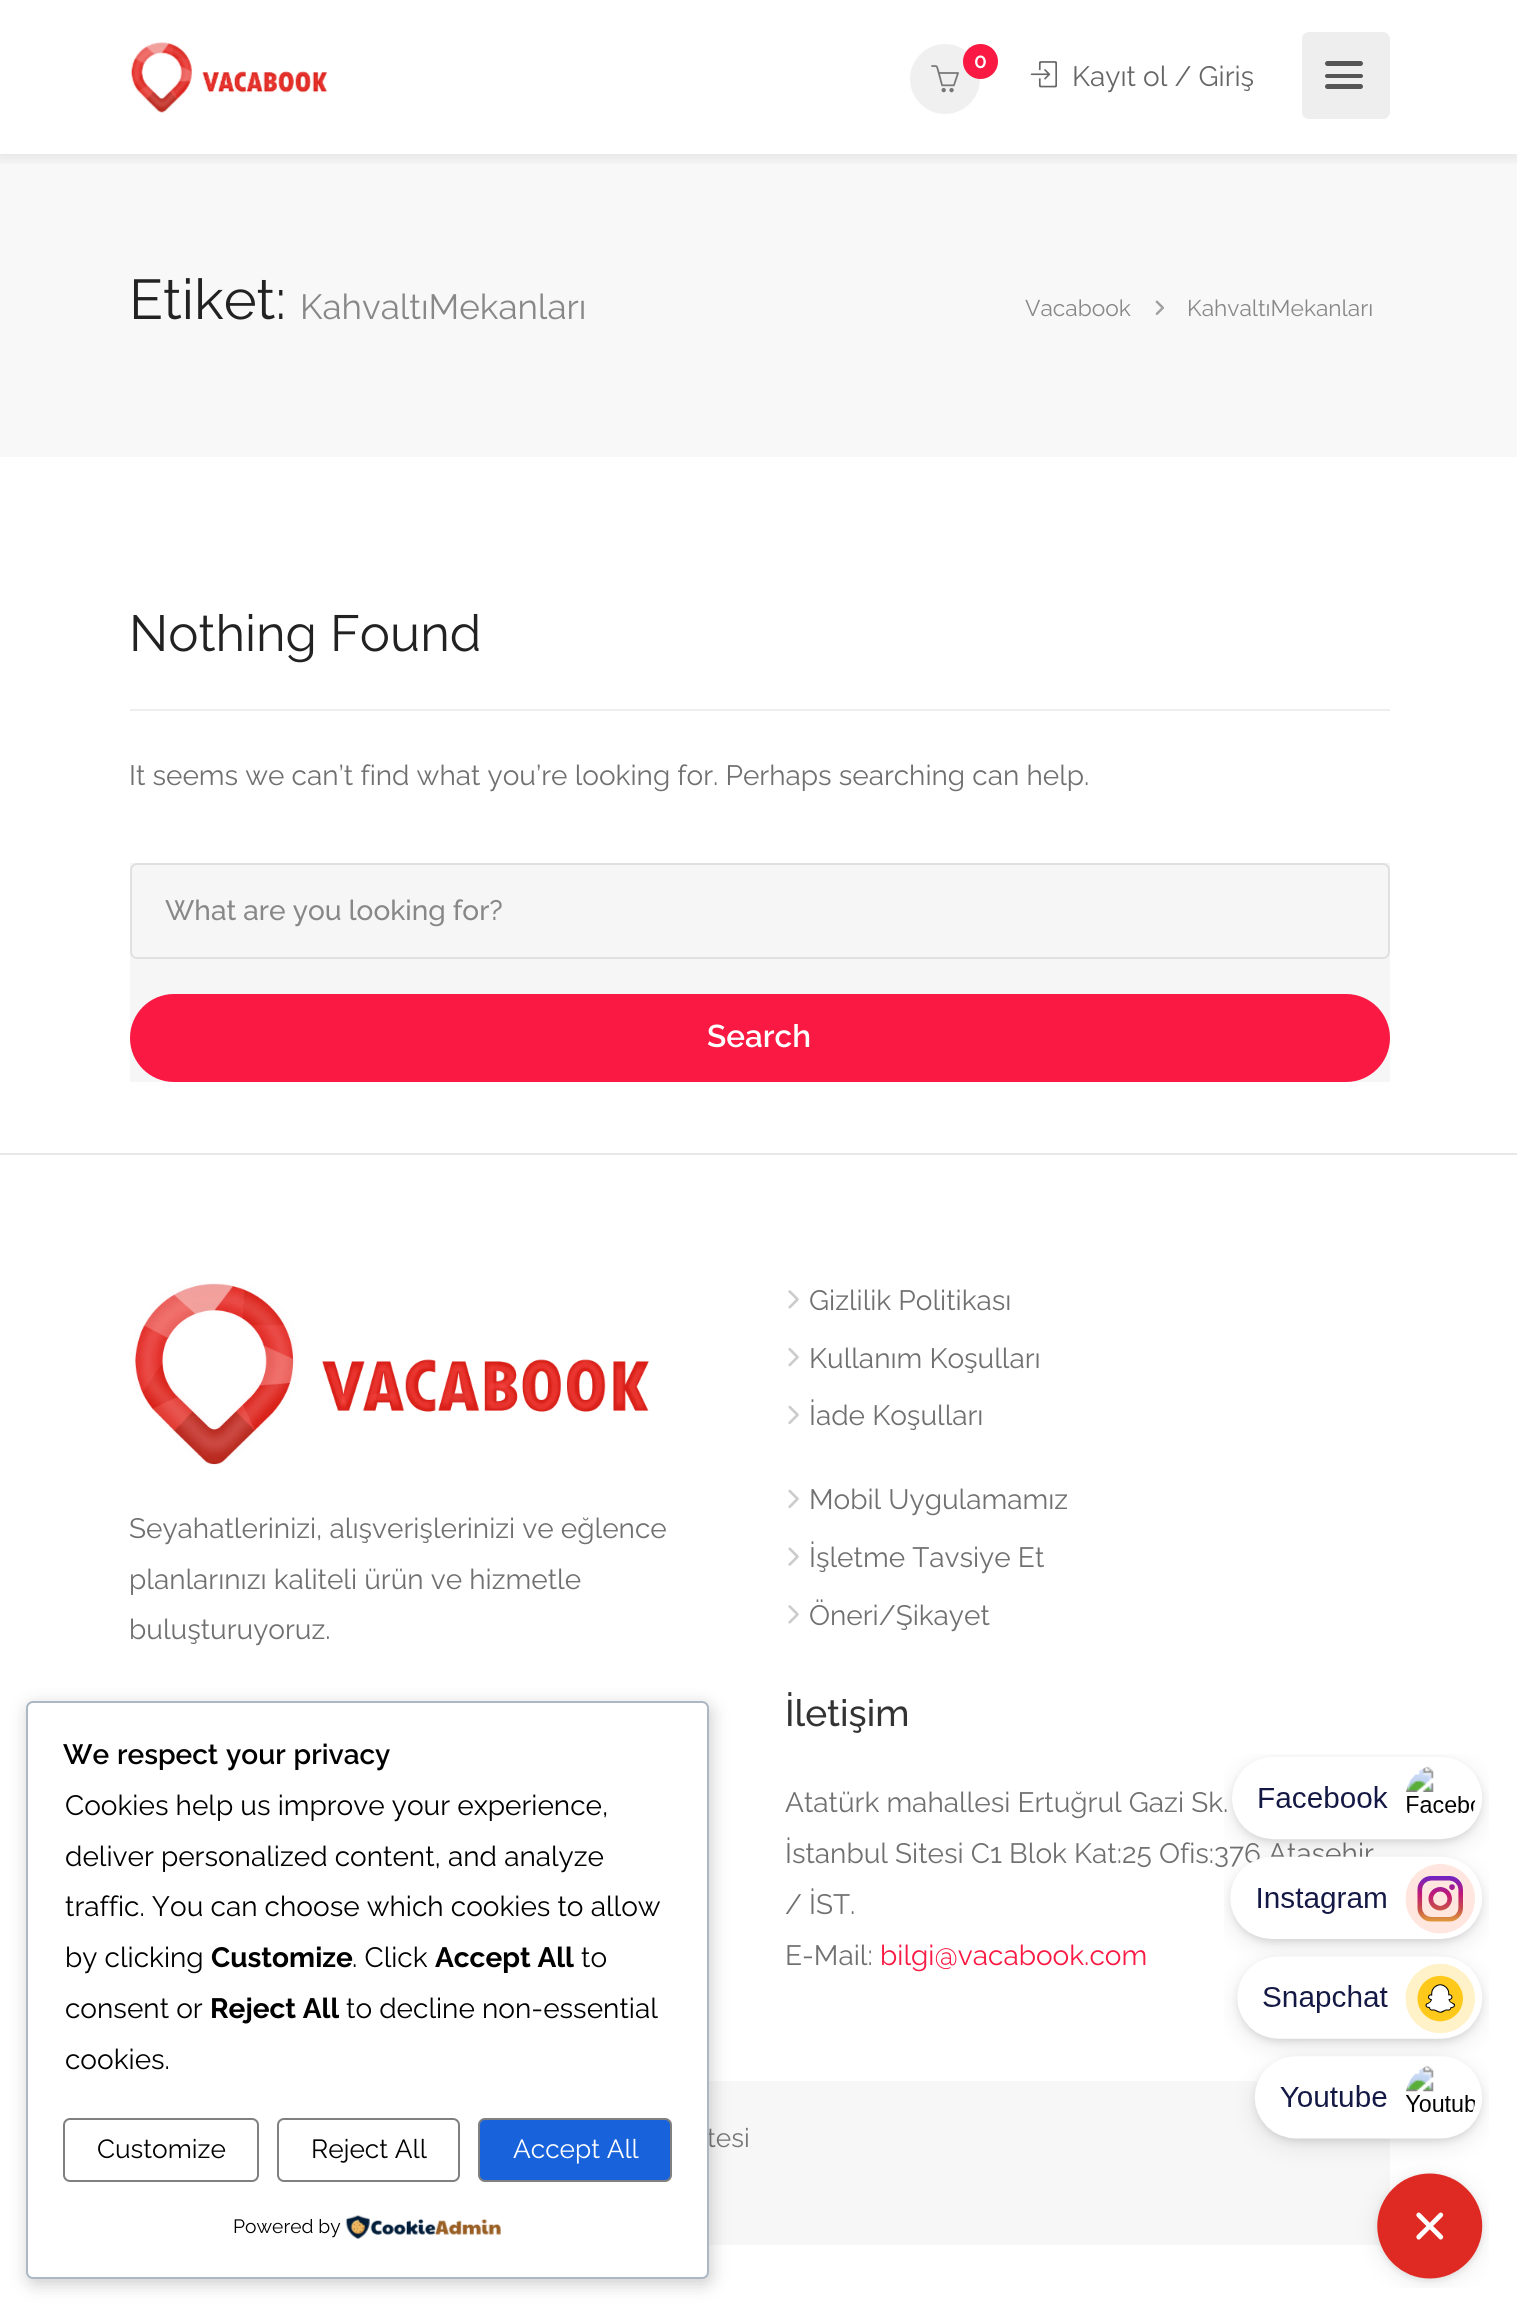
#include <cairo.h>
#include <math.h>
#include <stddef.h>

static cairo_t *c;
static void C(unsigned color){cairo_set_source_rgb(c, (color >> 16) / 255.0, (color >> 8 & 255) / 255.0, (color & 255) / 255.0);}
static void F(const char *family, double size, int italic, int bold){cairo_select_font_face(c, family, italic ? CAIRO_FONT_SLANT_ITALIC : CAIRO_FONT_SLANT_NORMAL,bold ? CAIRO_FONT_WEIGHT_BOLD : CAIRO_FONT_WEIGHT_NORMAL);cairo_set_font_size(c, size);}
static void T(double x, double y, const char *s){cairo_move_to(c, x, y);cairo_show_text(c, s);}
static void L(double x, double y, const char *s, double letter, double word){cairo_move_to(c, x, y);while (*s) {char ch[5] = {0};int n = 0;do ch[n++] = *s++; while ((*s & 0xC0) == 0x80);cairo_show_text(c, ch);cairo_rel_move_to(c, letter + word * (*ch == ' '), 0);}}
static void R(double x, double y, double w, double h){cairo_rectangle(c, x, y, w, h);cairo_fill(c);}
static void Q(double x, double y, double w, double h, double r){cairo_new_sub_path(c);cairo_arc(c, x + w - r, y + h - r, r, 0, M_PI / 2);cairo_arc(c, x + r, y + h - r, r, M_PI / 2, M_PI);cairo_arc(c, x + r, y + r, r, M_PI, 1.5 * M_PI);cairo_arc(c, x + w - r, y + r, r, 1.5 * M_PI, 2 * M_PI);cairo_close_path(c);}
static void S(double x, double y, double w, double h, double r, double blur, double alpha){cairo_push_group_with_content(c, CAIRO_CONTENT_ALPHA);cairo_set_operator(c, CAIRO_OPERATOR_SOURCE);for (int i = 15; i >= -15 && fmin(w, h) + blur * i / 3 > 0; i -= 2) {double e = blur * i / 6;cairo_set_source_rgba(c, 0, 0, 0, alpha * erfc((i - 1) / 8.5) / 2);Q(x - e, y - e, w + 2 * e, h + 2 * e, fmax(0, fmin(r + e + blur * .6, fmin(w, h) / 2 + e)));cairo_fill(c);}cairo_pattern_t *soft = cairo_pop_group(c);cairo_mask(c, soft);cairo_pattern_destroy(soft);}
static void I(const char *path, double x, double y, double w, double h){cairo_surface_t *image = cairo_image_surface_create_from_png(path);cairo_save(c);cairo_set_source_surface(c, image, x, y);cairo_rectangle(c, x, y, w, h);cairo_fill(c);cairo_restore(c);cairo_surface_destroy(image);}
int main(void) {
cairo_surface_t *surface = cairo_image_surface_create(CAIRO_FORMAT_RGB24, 1517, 2313);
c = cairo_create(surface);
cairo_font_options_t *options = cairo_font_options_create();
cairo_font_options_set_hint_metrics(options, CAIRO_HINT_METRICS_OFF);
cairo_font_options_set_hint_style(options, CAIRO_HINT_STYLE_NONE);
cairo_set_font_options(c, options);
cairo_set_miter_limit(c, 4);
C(0xffffff);
cairo_paint(c);
C(0xf8f8f8);
R(0,154,1517,303);
cairo_save(c);
cairo_rectangle(c,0,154,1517,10);
cairo_clip(c);
C(0x000000);
S(0,0,1517,154,0,10.5,.12);
cairo_restore(c);
I("1.png",130,42,197,71);
C(0xeeeeee);
Q(1302,32,88,87,7);
cairo_fill(c);
C(0x555555);
Q(1325,84,38,5,2.5);
cairo_fill(c);
Q(1325,61,38,5,2.5);
cairo_fill(c);
Q(1325,74,38,4,2);
cairo_fill(c);
C(0xf0f0f0);
cairo_arc(c,945,79,35,0,2 * M_PI);
cairo_fill(c);
C(0xf91942);
cairo_arc(c,980.5,61.5,17.5,0,2 * M_PI);
cairo_fill(c);
F("Raleway SemiBold",21,0,0);
C(0xffffff);
L(974,68,"0",-1,0);
I("2.png",931,65,28,28);
I("3.png",1030,61,27,27);
F("Raleway Thin",28,0,0);
C(0x666666);
T(1072,86,"Kayıt ol / Giriş");
F("Raleway Thin",56,0,0);
C(0x222222);
T(129,319,"Etiket:");
F("Raleway Thin",35,0,0);
C(0x888888);
T(300,319,"KahvaltıMekanları");
F("Raleway Thin",22.75,0,0);
T(1025,316,"Vacabook");
I("4.png",1155,300,9,15);
T(1187,316,"KahvaltıMekanları");
C(0xeeeeee);
R(130,709,1260,2);
F("Raleway Thin",50.75,0,0);
C(0x222222);
T(129,651,"Nothing Found");
F("Raleway Thin",28,0,0);
C(0x707070);
T(129,785,"It seems we can’t find what you’re looking for. Perhaps searching can help.");
C(0xf6f6f6);
R(130,863,1260,219);
Q(131,864,1258,94,6);
C(0xe0e0e0);
cairo_stroke(c);
F("Raleway Medium",28,0,0);
C(0x888888);
T(165,920,"What are you looking for?");
C(0xf91942);
Q(130,994,1260,88,44);
cairo_fill(c);
F("Raleway SemiBold",31.5,0,0);
C(0xffffff);
T(707,1047,"Search");
C(0xe8e8e8);
R(0,1153,1517,2);
I("5.png",788,1290,11,19);
F("Raleway Thin",28,0,0);
C(0x707070);
T(809,1310,"Gizlilik Politikası");
I("6.png",788,1348,11,19);
T(809,1368,"Kullanım Koşulları");
I("7.png",788,1405,11,19);
T(809,1425,"İade Koşulları");
I("8.png",134,1283,515,182);
T(129,1538,"Seyahatlerinizi, alışverişlerinizi ve eğlence");
T(129,1589,"planlarınızı kaliteli ürün ve hizmetle");
T(129,1639,"buluşturuyoruz.");
I("7.png",788,1489,11,19);
T(809,1509,"Mobil Uygulamamız");
I("9.png",788,1547,11,19);
T(809,1567,"İşletme Tavsiye Et");
I("5.png",788,1605,11,19);
T(809,1625,"Öneri/Şikayet");
F("Raleway Medium",37,0,0);
C(0x333333);
T(785,1726,"İletişim");
F("Raleway Thin",28,0,0);
C(0x707070);
T(785,1812,"Atatürk mahallesi Ertuğrul Gazi Sk.");
T(785,1863,"İstanbul Sitesi C1 Blok Kat:25 Ofis:376 Ataşehir");
T(785,1914,"/ İST.");
T(785,1965,"E-Mail:");
C(0xf91942);
T(880,1965,"bilgi@vacabook.com");
C(0xf7f7f7);
R(709,2081,681,164);
F("Raleway Thin",26.25,0,0);
C(0x777777);
T(707,2147,"tesi");
C(0x000000);
S(28,1706,683,578,7,9,.2);
C(0xffffff);
Q(27,1702,681,576,6);
cairo_fill_preserve(c);
C(0xabb8c3);
cairo_stroke(c);
F("Raleway SemiBold",28,0,0);
C(0x000000);
L(63,1764,"We respect your privacy",0,1);
F("Raleway Thin",28,0,0);
T(65,1815,"Cookies help us improve your experience,");
T(65,1866,"deliver personalized content, and analyze");
T(65,1916,"traffic. You can choose which cookies to allow");
T(65,1967,"by clicking");
F("Raleway",28,0,1);
T(211,1967,"Customize");
F("Raleway Thin",28,0,0);
T(352,1967,". Click");
F("Raleway",28,0,1);
T(435,1967,"Accept All");
F("Raleway Thin",28,0,0);
T(581,1967,"to");
T(65,2018,"consent or");
F("Raleway",28,0,1);
T(210,2018,"Reject All");
F("Raleway Thin",28,0,0);
T(346,2018,"to decline non-essential");
T(65,2069,"cookies.");
Q(64,2119,194,62,6);
C(0x808080);
cairo_stroke(c);
F("Raleway Thin",26.25,0,0);
C(0x000000);
T(97,2158,"Customize");
Q(278,2119,181,62,6);
C(0x808080);
cairo_stroke(c);
C(0x000000);
T(311,2158,"Reject All");
C(0x1863dc);
Q(479,2119,192,62,6);
cairo_fill_preserve(c);
C(0x808080);
cairo_stroke(c);
C(0xffffff);
T(513,2158,"Accept All");
F("Raleway Thin",19.25,0,0);
C(0x000000);
T(233,2233,"Powered by");
I("10.png",345,2215,156,24);
I("11.png",1224,1754,265,534);
cairo_surface_write_to_png(surface, "o.png");
cairo_font_options_destroy(options);
cairo_destroy(c);
cairo_surface_destroy(surface);
return 0;
}
